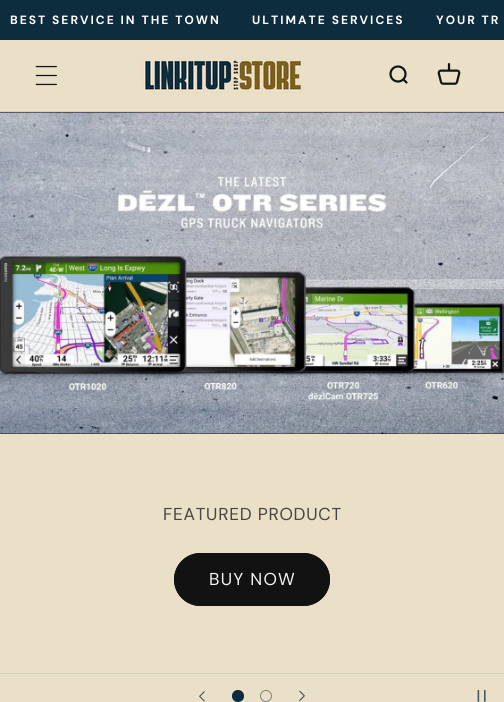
#include <cairo.h>
#include <math.h>
#include <stddef.h>

static cairo_t *c;
static void C(unsigned color){cairo_set_source_rgb(c, (color >> 16) / 255.0, (color >> 8 & 255) / 255.0, (color & 255) / 255.0);}
static void F(const char *family, double size, int italic, int bold){cairo_select_font_face(c, family, italic ? CAIRO_FONT_SLANT_ITALIC : CAIRO_FONT_SLANT_NORMAL,bold ? CAIRO_FONT_WEIGHT_BOLD : CAIRO_FONT_WEIGHT_NORMAL);cairo_set_font_size(c, size);}
static void L(double x, double y, const char *s, double letter, double word){cairo_move_to(c, x, y);while (*s) {char ch[5] = {0};int n = 0;do ch[n++] = *s++; while ((*s & 0xC0) == 0x80);cairo_show_text(c, ch);cairo_rel_move_to(c, letter + word * (*ch == ' '), 0);}}
static void R(double x, double y, double w, double h){cairo_rectangle(c, x, y, w, h);cairo_fill(c);}
static void Q(double x, double y, double w, double h, double r){cairo_new_sub_path(c);cairo_arc(c, x + w - r, y + h - r, r, 0, M_PI / 2);cairo_arc(c, x + r, y + h - r, r, M_PI / 2, M_PI);cairo_arc(c, x + r, y + r, r, M_PI, 1.5 * M_PI);cairo_arc(c, x + w - r, y + r, r, 1.5 * M_PI, 2 * M_PI);cairo_close_path(c);}
static void I(const char *path, double x, double y, double w, double h){cairo_surface_t *image = cairo_image_surface_create_from_png(path);cairo_save(c);cairo_set_source_surface(c, image, x, y);cairo_rectangle(c, x, y, w, h);cairo_fill(c);cairo_restore(c);cairo_surface_destroy(image);}
int main(void) {
cairo_surface_t *surface = cairo_image_surface_create(CAIRO_FORMAT_RGB24, 504, 702);
c = cairo_create(surface);
cairo_font_options_t *options = cairo_font_options_create();
cairo_font_options_set_hint_metrics(options, CAIRO_HINT_METRICS_OFF);
cairo_font_options_set_hint_style(options, CAIRO_HINT_STYLE_NONE);
cairo_set_font_options(c, options);
cairo_set_miter_limit(c, 4);
C(0xeadfc7);
cairo_paint(c);
C(0x0d2c3e);
R(0,0,504,40);
F("DM Sans",12,0,1);
C(0xffffff);
L(10,24,"BEST SERVICE IN THE TOWN",2,0);
L(252,24,"ULTIMATE SERVICES",2,0);
L(436,24,"YOUR TR",2,0);
C(0xd9cfb9);
R(0,111,504,1);
I("1.png",35,65,22,21);
I("2.png",137,53,167,40);
cairo_arc(c,398,74,7.5,0,2 * M_PI);
C(0x121212);
cairo_set_line_width(c,2.2);
cairo_stroke(c);
cairo_new_path(c);
cairo_move_to(c,403.5,79.5);
cairo_line_to(c,406.5,82.5);
cairo_set_line_cap(c,CAIRO_LINE_CAP_ROUND);
cairo_set_line_join(c,CAIRO_LINE_JOIN_ROUND);
cairo_stroke(c);
I("3.png",437,63,24,22);
I("4.png",0,112,504,322);
F("DM Sans",17.25,0,0);
C(0x48453f);
L(163,520,"FEATURED PRODUCT",.75,0);
C(0x121212);
Q(174,553,156,53,26.5);
cairo_fill(c);
Q(174.5,553.5,155,52,26);
cairo_set_line_width(c,1);
cairo_set_line_cap(c,CAIRO_LINE_CAP_BUTT);
cairo_set_line_join(c,CAIRO_LINE_JOIN_MITER);
cairo_stroke(c);
C(0xf3f3f3);
L(209,585,"BUY NOW",1.25,0);
C(0xd8d1bc);
R(0,673,504,1);
I("5.png",199,691,6,11);
C(0x0d2c3e);
cairo_arc(c,238,696,6,0,2 * M_PI);
cairo_fill(c);
cairo_arc(c,238,696,5.5,0,2 * M_PI);
cairo_set_source_rgba(c,0.051,0.173,0.243,0.5);
cairo_stroke(c);
cairo_arc(c,266,696,5.5,0,2 * M_PI);
C(0x7c8683);
cairo_stroke(c);
I("6.png",299,690,6,11);
I("7.png",477,689,9,13);
cairo_surface_write_to_png(surface, "o.png");
cairo_font_options_destroy(options);
cairo_destroy(c);
cairo_surface_destroy(surface);
return 0;
}
